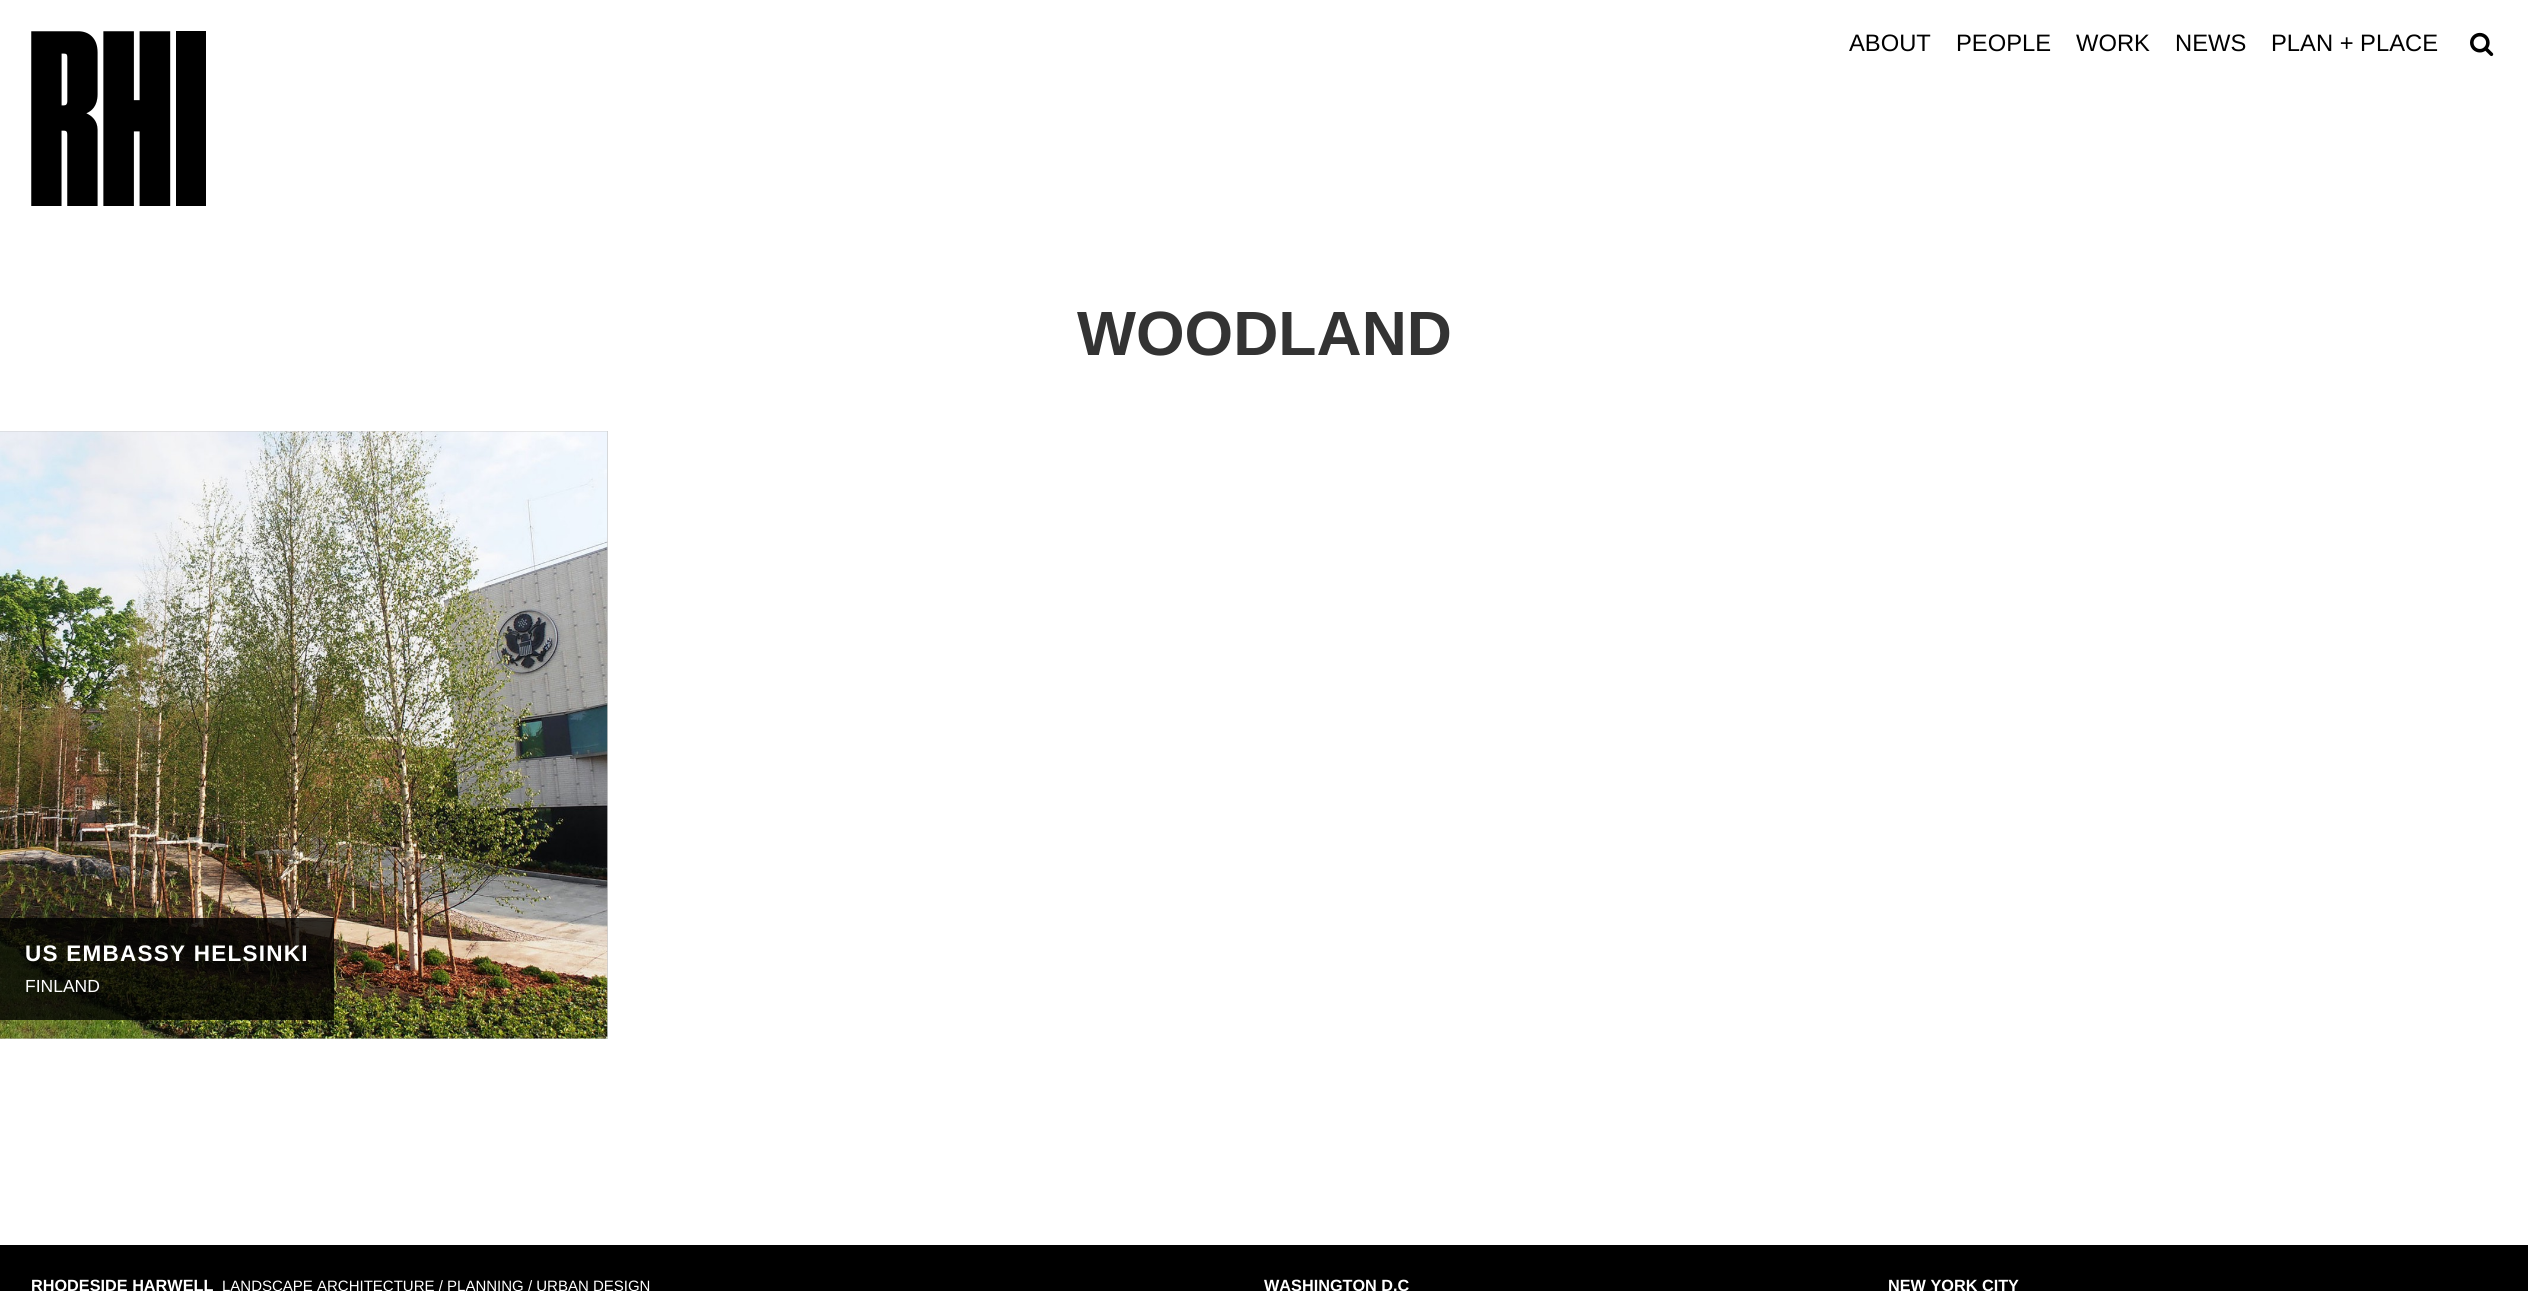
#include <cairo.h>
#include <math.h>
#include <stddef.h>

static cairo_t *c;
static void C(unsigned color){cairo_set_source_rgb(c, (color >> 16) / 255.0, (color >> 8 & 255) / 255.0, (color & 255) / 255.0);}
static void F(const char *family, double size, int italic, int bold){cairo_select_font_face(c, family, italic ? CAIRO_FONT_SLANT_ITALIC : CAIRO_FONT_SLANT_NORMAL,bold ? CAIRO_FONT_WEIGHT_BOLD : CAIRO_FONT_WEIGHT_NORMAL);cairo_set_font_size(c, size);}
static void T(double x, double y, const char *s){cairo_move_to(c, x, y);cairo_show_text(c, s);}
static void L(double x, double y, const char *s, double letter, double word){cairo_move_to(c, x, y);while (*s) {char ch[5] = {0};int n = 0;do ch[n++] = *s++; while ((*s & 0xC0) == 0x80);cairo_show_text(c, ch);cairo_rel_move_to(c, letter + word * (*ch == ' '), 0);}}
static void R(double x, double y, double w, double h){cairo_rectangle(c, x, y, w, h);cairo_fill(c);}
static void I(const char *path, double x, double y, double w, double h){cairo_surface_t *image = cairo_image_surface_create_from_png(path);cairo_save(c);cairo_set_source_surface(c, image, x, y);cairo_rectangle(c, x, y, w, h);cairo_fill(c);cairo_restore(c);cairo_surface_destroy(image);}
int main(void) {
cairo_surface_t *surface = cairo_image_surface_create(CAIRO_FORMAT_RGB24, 2528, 1291);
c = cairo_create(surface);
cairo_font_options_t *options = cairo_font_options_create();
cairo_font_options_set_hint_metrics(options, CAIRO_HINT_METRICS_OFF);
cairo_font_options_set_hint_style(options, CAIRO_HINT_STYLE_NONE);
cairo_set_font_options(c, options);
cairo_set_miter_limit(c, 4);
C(0xffffff);
cairo_paint(c);
I("1.png",31,31,175,175);
F("Liberation Sans",23.75,0,0);
C(0x000000);
T(1849,51,"ABOUT");
T(1956,51,"PEOPLE");
T(2076,51,"WORK");
T(2175,51,"NEWS");
T(2271,51,"PLAN + PLACE");
I("2.png",2470,32,24,25);
F("Liberation Sans",62.5,0,1);
C(0x333333);
T(1077,355,"WOODLAND");
C(0xcdcdcd);
R(0,431,608,608);
I("3.png",0,431,608,608);
cairo_set_source_rgba(c,0,0,0,0.8);
R(0,918,334,102);
F("Liberation Sans",22.5,0,1);
C(0xffffff);
L(25,961,"US EMBASSY HELSINKI",1.25,0);
F("Liberation Sans",17.5,0,0);
T(25,992,"FINLAND");
C(0x000000);
R(0,1245,2528,46);
F("Liberation Sans",16.25,0,1);
C(0xffffff);
T(31,1291,"RHODESIDE HARWELL");
F("Liberation Sans",15,0,0);
T(222,1291,"LANDSCAPE ARCHITECTURE / PLANNING / URBAN DESIGN");
F("Liberation Sans",16.25,0,1);
T(1264,1291,"WASHINGTON D.C");
T(1888,1291,"NEW YORK CITY");
cairo_surface_write_to_png(surface, "o.png");
cairo_font_options_destroy(options);
cairo_destroy(c);
cairo_surface_destroy(surface);
return 0;
}
